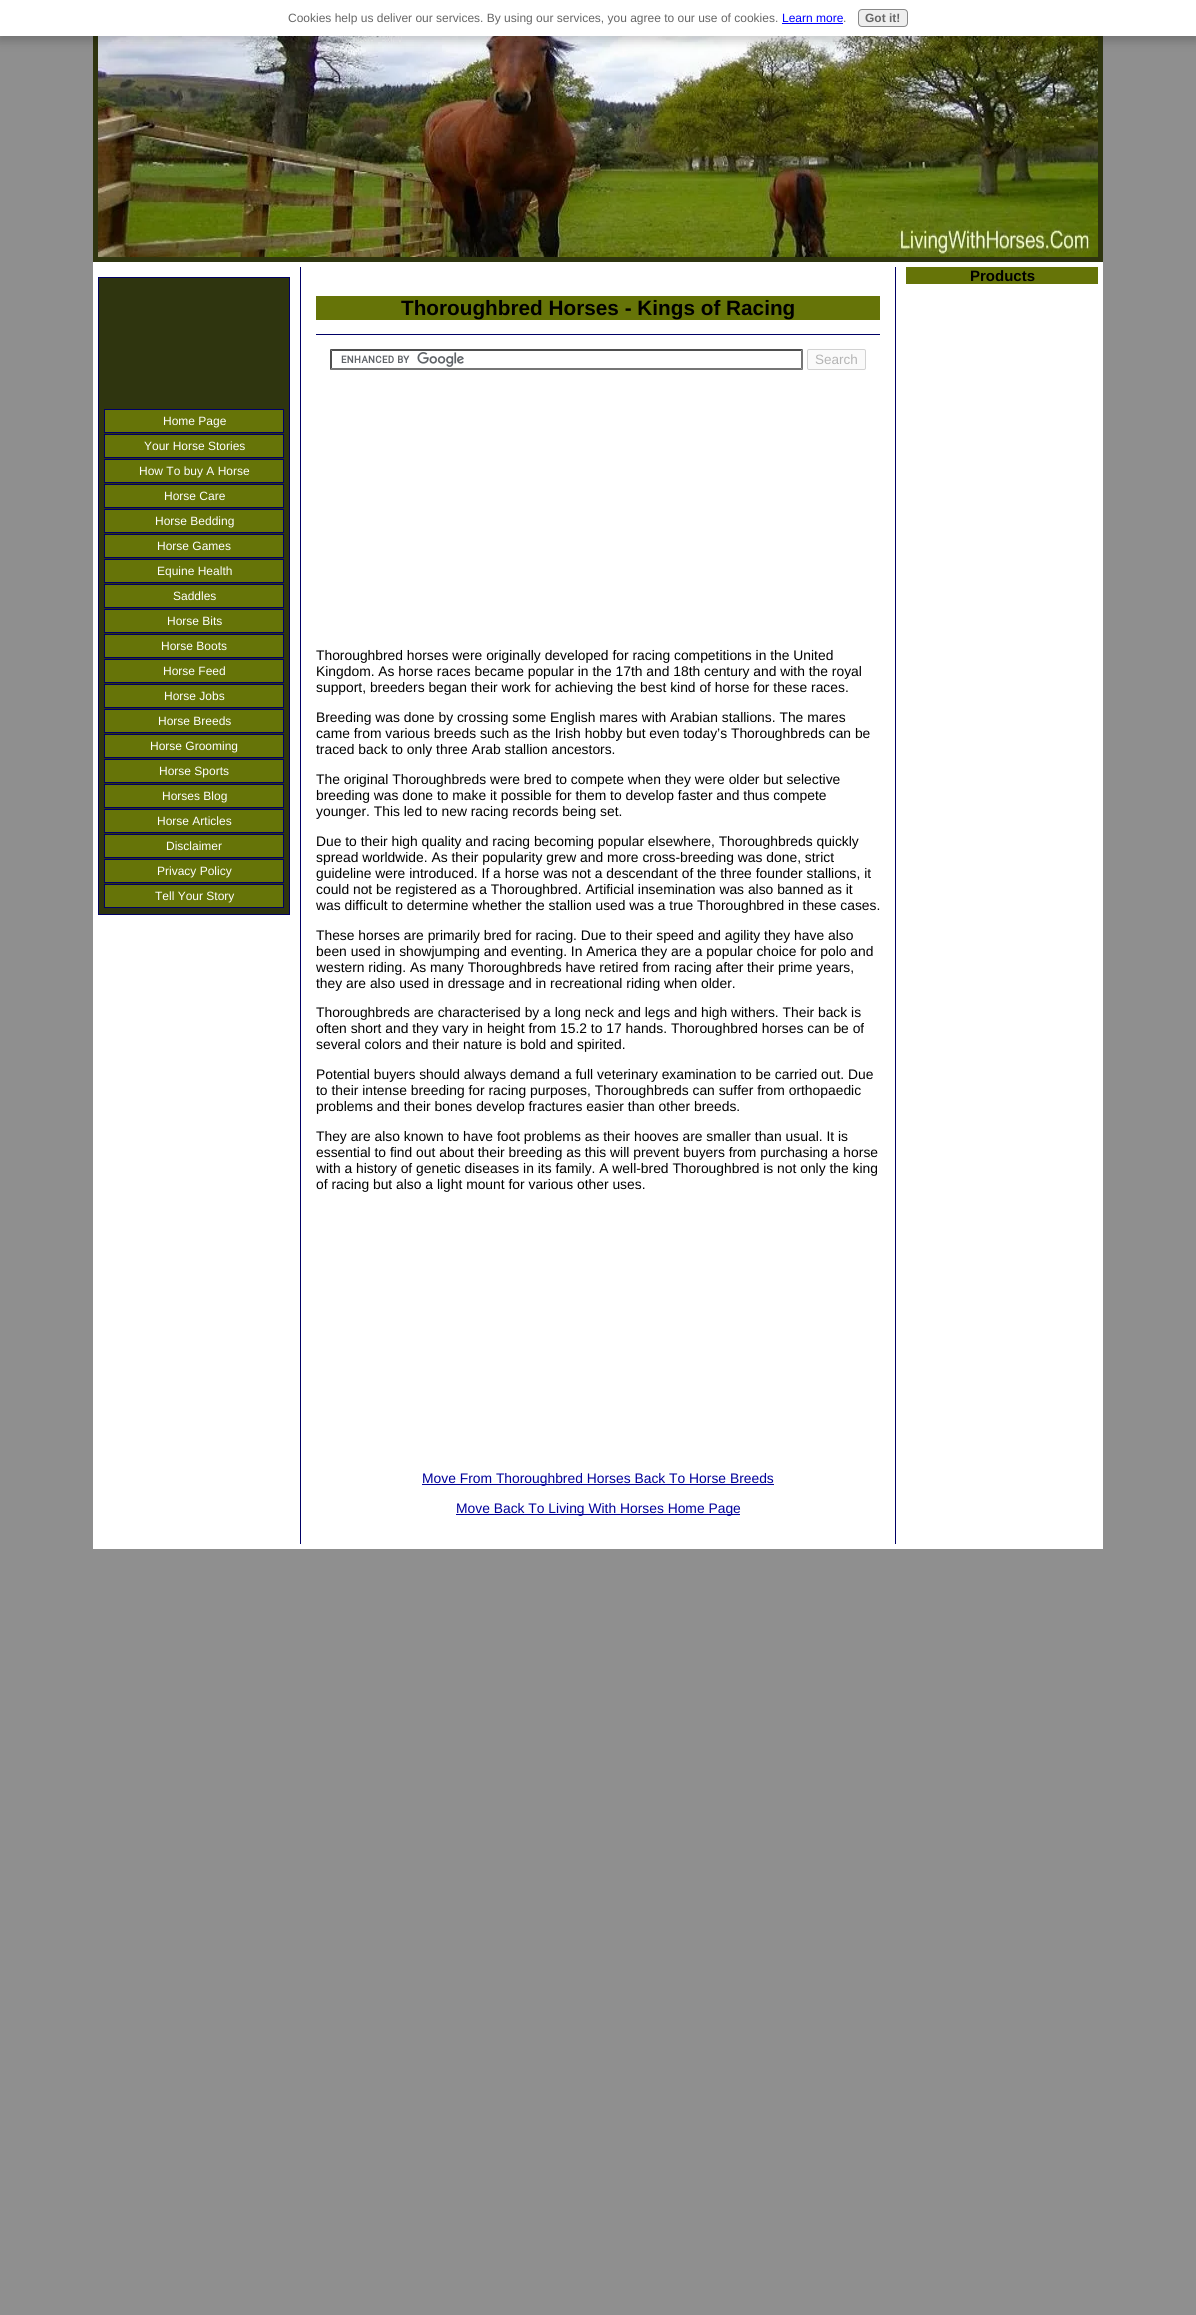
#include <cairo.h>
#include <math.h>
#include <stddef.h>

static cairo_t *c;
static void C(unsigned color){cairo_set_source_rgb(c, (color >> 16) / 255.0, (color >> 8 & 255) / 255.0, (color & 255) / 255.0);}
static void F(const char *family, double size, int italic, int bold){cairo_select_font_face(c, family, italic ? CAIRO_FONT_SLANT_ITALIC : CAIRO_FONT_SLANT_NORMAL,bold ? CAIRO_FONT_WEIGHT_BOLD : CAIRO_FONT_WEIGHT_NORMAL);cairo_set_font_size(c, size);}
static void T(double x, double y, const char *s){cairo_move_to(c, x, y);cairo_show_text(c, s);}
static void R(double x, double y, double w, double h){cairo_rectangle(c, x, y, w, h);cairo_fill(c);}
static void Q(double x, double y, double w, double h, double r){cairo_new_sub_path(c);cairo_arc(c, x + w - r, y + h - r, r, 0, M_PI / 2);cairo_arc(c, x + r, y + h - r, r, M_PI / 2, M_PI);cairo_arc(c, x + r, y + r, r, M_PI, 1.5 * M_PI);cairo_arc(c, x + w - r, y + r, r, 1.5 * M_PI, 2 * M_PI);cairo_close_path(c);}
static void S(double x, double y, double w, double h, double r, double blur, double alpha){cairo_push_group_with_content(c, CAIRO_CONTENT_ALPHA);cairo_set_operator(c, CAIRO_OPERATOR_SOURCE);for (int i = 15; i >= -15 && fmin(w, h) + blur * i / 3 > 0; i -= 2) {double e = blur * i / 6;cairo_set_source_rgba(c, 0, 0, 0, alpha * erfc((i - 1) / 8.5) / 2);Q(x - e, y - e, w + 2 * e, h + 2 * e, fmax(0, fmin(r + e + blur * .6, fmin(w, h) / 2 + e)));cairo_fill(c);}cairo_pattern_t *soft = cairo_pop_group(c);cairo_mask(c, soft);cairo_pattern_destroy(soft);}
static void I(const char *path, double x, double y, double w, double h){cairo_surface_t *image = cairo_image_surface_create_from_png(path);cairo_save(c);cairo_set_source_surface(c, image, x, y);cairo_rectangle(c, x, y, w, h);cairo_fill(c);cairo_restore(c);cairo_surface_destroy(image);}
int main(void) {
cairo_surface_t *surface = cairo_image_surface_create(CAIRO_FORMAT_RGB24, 1196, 2315);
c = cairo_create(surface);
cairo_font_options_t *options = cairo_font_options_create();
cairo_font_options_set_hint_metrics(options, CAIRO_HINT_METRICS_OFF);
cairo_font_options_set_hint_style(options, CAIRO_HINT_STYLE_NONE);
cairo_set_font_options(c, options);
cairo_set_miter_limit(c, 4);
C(0x8f8f8f);
cairo_paint(c);
C(0x2f350f);
R(93,36,1010,226);
I("1.png",98,36,1000,221);
C(0x000000);
S(-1,3,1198,38,0,5,.2);
C(0xffffff);
R(0,0,1196,36);
F("Liberation Sans",12,0,0);
C(0x666666);
T(288,22,"Cookies help us deliver our services. By using our services, you agree to our use of cookies.");
C(0x0000ff);
T(782,22,"Learn more");
R(782,23,61,1);
C(0x666666);
T(843,22,".");
C(0xeeeeee);
Q(858.5,9.5,49,17,3.5);
cairo_fill_preserve(c);
C(0x888888);
cairo_set_line_width(c,1);
cairo_stroke(c);
F("Liberation Sans",12,0,1);
C(0x666666);
T(865,22,"Got it!");
C(0xffffff);
R(93,262,202,1287);
C(0x2f350f);
cairo_rectangle(c,98.5,277.5,191,637);
cairo_fill_preserve(c);
C(0x000066);
cairo_stroke(c);
C(0x667408);
cairo_rectangle(c,104.5,409.5,179,23);
cairo_fill_preserve(c);
C(0x000066);
cairo_stroke(c);
F("Liberation Sans",12,0,0);
C(0xffffff);
T(163,425,"Home Page");
C(0x667408);
cairo_rectangle(c,104.5,434.5,179,23);
cairo_fill_preserve(c);
C(0x000066);
cairo_stroke(c);
C(0xffffff);
T(144,450,"Your Horse Stories");
C(0x667408);
cairo_rectangle(c,104.5,459.5,179,23);
cairo_fill_preserve(c);
C(0x000066);
cairo_stroke(c);
C(0xffffff);
T(139,475,"How To buy A Horse");
C(0x667408);
cairo_rectangle(c,104.5,484.5,179,23);
cairo_fill_preserve(c);
C(0x000066);
cairo_stroke(c);
C(0xffffff);
T(164,500,"Horse Care");
C(0x667408);
cairo_rectangle(c,104.5,509.5,179,23);
cairo_fill_preserve(c);
C(0x000066);
cairo_stroke(c);
C(0xffffff);
T(155,525,"Horse Bedding");
C(0x667408);
cairo_rectangle(c,104.5,534.5,179,23);
cairo_fill_preserve(c);
C(0x000066);
cairo_stroke(c);
C(0xffffff);
T(157,550,"Horse Games");
C(0x667408);
cairo_rectangle(c,104.5,559.5,179,23);
cairo_fill_preserve(c);
C(0x000066);
cairo_stroke(c);
C(0xffffff);
T(157,575,"Equine Health");
C(0x667408);
cairo_rectangle(c,104.5,584.5,179,23);
cairo_fill_preserve(c);
C(0x000066);
cairo_stroke(c);
C(0xffffff);
T(173,600,"Saddles");
C(0x667408);
cairo_rectangle(c,104.5,609.5,179,23);
cairo_fill_preserve(c);
C(0x000066);
cairo_stroke(c);
C(0xffffff);
T(167,625,"Horse Bits");
C(0x667408);
cairo_rectangle(c,104.5,634.5,179,23);
cairo_fill_preserve(c);
C(0x000066);
cairo_stroke(c);
C(0xffffff);
T(161,650,"Horse Boots");
C(0x667408);
cairo_rectangle(c,104.5,659.5,179,23);
cairo_fill_preserve(c);
C(0x000066);
cairo_stroke(c);
C(0xffffff);
T(163,675,"Horse Feed");
C(0x667408);
cairo_rectangle(c,104.5,684.5,179,23);
cairo_fill_preserve(c);
C(0x000066);
cairo_stroke(c);
C(0xffffff);
T(164,700,"Horse Jobs");
C(0x667408);
cairo_rectangle(c,104.5,709.5,179,23);
cairo_fill_preserve(c);
C(0x000066);
cairo_stroke(c);
C(0xffffff);
T(158,725,"Horse Breeds");
C(0x667408);
cairo_rectangle(c,104.5,734.5,179,23);
cairo_fill_preserve(c);
C(0x000066);
cairo_stroke(c);
C(0xffffff);
T(150,750,"Horse Grooming");
C(0x667408);
cairo_rectangle(c,104.5,759.5,179,23);
cairo_fill_preserve(c);
C(0x000066);
cairo_stroke(c);
C(0xffffff);
T(159,775,"Horse Sports");
C(0x667408);
cairo_rectangle(c,104.5,784.5,179,23);
cairo_fill_preserve(c);
C(0x000066);
cairo_stroke(c);
C(0xffffff);
T(162,800,"Horses Blog");
C(0x667408);
cairo_rectangle(c,104.5,809.5,179,23);
cairo_fill_preserve(c);
C(0x000066);
cairo_stroke(c);
C(0xffffff);
T(157,825,"Horse Articles");
C(0x667408);
cairo_rectangle(c,104.5,834.5,179,23);
cairo_fill_preserve(c);
C(0x000066);
cairo_stroke(c);
C(0xffffff);
T(166,850,"Disclaimer");
C(0x667408);
cairo_rectangle(c,104.5,859.5,179,23);
cairo_fill_preserve(c);
C(0x000066);
cairo_stroke(c);
C(0xffffff);
T(157,875,"Privacy Policy");
C(0x667408);
cairo_rectangle(c,104.5,884.5,179,23);
cairo_fill_preserve(c);
C(0x000066);
cairo_stroke(c);
C(0xffffff);
T(155,900,"Tell Your Story");
R(295,262,808,1287);
C(0x667408);
R(906,267,192,17);
F("Liberation Sans",15,0,1);
C(0x000000);
T(970,281,"Products");
C(0x000066);
R(895,267,1,1277);
R(300,267,1,1277);
C(0x667408);
R(316,296,564,24);
F("Liberation Sans",20.75,0,1);
C(0x000000);
T(401,315,"Thoroughbred Horses - Kings of Racing");
C(0x000066);
R(316,334,564,1);
I("2.png",341,352,123,15);
C(0x4f4f4f);
cairo_new_path(c);
cairo_move_to(c,330,349);
cairo_line_to(c,803,349);
cairo_line_to(c,801,351);
cairo_line_to(c,332,351);
cairo_close_path(c);
cairo_fill(c);
C(0x767676);
cairo_new_path(c);
cairo_move_to(c,803,349);
cairo_line_to(c,803,370);
cairo_line_to(c,801,368);
cairo_line_to(c,801,351);
cairo_close_path(c);
cairo_fill(c);
cairo_new_path(c);
cairo_move_to(c,803,370);
cairo_line_to(c,330,370);
cairo_line_to(c,332,368);
cairo_line_to(c,801,368);
cairo_close_path(c);
cairo_fill(c);
C(0x4f4f4f);
cairo_new_path(c);
cairo_move_to(c,330,370);
cairo_line_to(c,330,349);
cairo_line_to(c,332,351);
cairo_line_to(c,332,368);
cairo_close_path(c);
cairo_fill(c);
C(0xfafafa);
Q(807.5,349.5,58,20,1.5);
cairo_fill_preserve(c);
C(0xd2d2d2);
cairo_stroke(c);
F("Liberation Sans",13.5,0,0);
C(0xb4b4b4);
T(815,364,"Search");
F("Liberation Sans",13.85,0,0);
C(0x000000);
T(316,660,"Thoroughbred horses were originally developed for racing competitions in the United");
T(316,676,"Kingdom. As horse races became popular in the 17th and 18th century and with the royal");
T(316,692,"support, breeders began their work for achieving the best kind of horse for these races.");
T(316,722,"Breeding was done by crossing some English mares with Arabian stallions. The mares");
T(316,738,"came from various breeds such as the Irish hobby but even today’s Thoroughbreds can be");
T(316,754,"traced back to only three Arab stallion ancestors.");
T(316,784,"The original Thoroughbreds were bred to compete when they were older but selective");
T(316,800,"breeding was done to make it possible for them to develop faster and thus compete");
T(316,816,"younger. This led to new racing records being set.");
T(316,846,"Due to their high quality and racing becoming popular elsewhere, Thoroughbreds quickly");
T(316,862,"spread worldwide. As their popularity grew and more cross-breeding was done, strict");
T(316,878,"guideline were introduced. If a horse was not a descendant of the three founder stallions, it");
T(316,894,"could not be registered as a Thoroughbred. Artificial insemination was also banned as it");
T(316,910,"was difficult to determine whether the stallion used was a true Thoroughbred in these cases.");
T(316,940,"These horses are primarily bred for racing. Due to their speed and agility they have also");
T(316,956,"been used in showjumping and eventing. In America they are a popular choice for polo and");
T(316,972,"western riding. As many Thoroughbreds have retired from racing after their prime years,");
T(316,988,"they are also used in dressage and in recreational riding when older.");
T(316,1017,"Thoroughbreds are characterised by a long neck and legs and high withers. Their back is");
T(316,1033,"often short and they vary in height from 15.2 to 17 hands. Thoroughbred horses can be of");
T(316,1049,"several colors and their nature is bold and spirited.");
T(316,1079,"Potential buyers should always demand a full veterinary examination to be carried out. Due");
T(316,1095,"to their intense breeding for racing purposes, Thoroughbreds can suffer from orthopaedic");
T(316,1111,"problems and their bones develop fractures easier than other breeds.");
T(316,1141,"They are also known to have foot problems as their hooves are smaller than usual. It is");
T(316,1157,"essential to find out about their breeding as this will prevent buyers from purchasing a horse");
T(316,1173,"with a history of genetic diseases in its family. A well-bred Thoroughbred is not only the king");
T(316,1189,"of racing but also a light mount for various other uses.");
C(0x000099);
R(422,1484,352,1);
T(422,1483,"Move From Thoroughbred Horses Back To Horse Breeds");
R(456,1514,284,1);
T(456,1513,"Move Back To Living With Horses Home Page");
cairo_surface_write_to_png(surface, "o.png");
cairo_font_options_destroy(options);
cairo_destroy(c);
cairo_surface_destroy(surface);
return 0;
}
